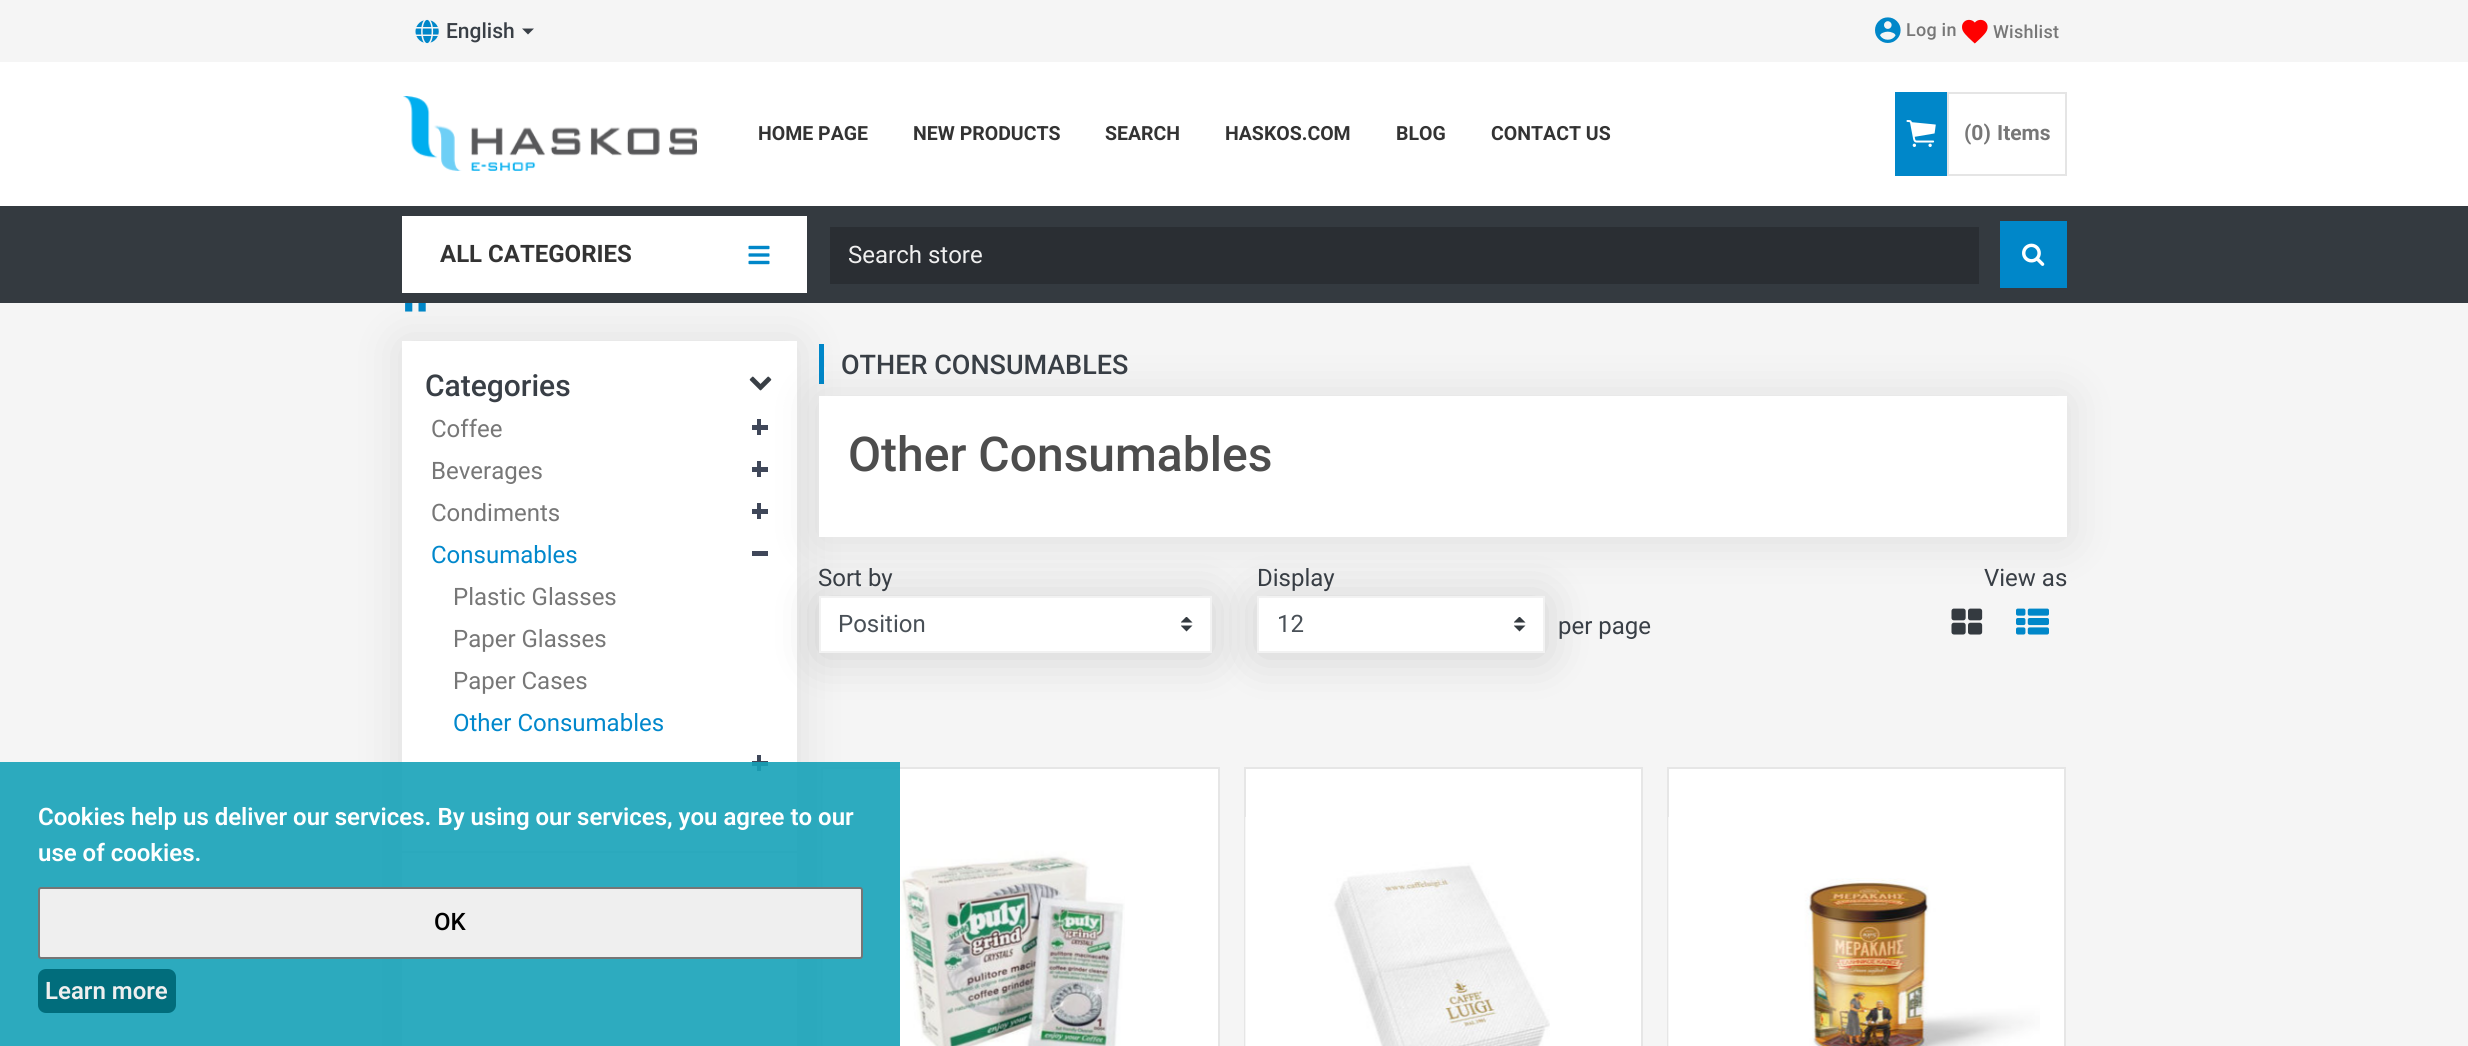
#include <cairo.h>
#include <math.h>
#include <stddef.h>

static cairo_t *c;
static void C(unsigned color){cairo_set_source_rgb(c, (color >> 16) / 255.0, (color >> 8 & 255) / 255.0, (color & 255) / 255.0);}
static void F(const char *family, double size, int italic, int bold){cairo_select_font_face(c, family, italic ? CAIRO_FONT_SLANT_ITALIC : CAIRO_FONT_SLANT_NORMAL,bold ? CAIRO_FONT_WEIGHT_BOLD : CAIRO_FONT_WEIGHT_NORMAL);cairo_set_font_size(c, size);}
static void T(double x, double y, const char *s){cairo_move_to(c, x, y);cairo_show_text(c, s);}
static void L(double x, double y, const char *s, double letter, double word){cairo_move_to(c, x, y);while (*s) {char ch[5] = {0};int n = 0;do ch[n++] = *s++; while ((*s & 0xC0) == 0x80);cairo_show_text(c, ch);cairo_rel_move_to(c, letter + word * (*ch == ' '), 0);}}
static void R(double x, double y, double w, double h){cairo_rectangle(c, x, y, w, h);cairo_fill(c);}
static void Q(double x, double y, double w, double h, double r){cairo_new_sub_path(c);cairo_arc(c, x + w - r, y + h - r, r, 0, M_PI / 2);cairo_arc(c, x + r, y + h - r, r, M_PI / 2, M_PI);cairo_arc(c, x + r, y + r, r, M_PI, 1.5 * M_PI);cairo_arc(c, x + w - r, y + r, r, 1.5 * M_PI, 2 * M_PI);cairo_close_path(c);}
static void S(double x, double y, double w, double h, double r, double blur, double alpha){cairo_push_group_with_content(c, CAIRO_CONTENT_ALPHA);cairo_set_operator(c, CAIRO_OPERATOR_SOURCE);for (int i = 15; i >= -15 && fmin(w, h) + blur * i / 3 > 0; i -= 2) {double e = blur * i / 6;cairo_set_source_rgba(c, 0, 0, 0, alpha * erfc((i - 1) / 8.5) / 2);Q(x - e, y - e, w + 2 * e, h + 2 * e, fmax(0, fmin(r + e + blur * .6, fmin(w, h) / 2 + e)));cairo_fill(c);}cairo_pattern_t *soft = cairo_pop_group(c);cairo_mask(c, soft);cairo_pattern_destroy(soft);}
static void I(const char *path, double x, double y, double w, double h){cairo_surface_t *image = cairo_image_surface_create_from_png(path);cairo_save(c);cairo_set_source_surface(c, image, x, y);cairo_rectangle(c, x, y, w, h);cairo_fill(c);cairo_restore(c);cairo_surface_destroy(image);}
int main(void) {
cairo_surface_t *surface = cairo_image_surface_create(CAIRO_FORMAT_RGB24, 2468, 1046);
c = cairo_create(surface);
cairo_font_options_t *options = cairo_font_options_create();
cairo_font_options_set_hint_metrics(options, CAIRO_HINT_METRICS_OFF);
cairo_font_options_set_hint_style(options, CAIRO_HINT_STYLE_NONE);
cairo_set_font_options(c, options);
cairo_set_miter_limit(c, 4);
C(0xf5f5f5);
cairo_paint(c);
C(0xffffff);
R(0,62,2468,144);
I("1.png",415,19,24,25);
F("Roboto Medium",21,0,0);
C(0x393f46);
T(446,38,"English");
cairo_new_path(c);
cairo_move_to(c,522,28.5);
cairo_line_to(c,534,28.5);
cairo_line_to(c,528,34.5);
cairo_close_path(c);
cairo_fill(c);
I("2.png",1875,17,26,26);
F("Roboto Medium",18,0,0);
C(0x777777);
L(1906,36,"Log in",.25,0);
I("3.png",1962,19,26,25);
L(1993,38,"Wishlist",.25,0);
I("4.png",403,96,294,75);
F("Roboto",19.5,0,1);
C(0x333333);
T(758,140,"HOME PAGE");
T(913,140,"NEW PRODUCTS");
T(1105,140,"SEARCH");
T(1225,140,"HASKOS.COM");
T(1396,140,"BLOG");
T(1491,140,"CONTACT US");
C(0x0087c9);
R(1895,92,52,84);
I("5.png",1906,120,30,27);
cairo_rectangle(c,1948,93,118,82);
C(0xe5e5e5);
cairo_stroke(c);
F("Roboto",21,0,1);
C(0x777777);
T(1964,140,"(0)");
T(1997,140,"Items");
I("8.png",405,303,21,9);
C(0x000000);
S(402,344,395,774,0,24,.1);
C(0x343a40);
R(0,206,2468,97);
C(0xffffff);
R(402,216,405,77);
F("Roboto",24,0,1);
C(0x333333);
T(440,262,"ALL CATEGORIES");
I("6.png",748,245,22,20);
cairo_set_source_rgba(c,0,0,0,0.2);
R(830,227,1149,57);
F("Roboto",24,0,0);
C(0xefefef);
T(848,263,"Search store");
C(0x0087c9);
R(2000,221,67,67);
I("7.png",2022,243,23,23);
C(0xffffff);
R(402,341,395,705);
C(0xe6e6e6);
R(402,851,395,2);
F("Roboto Medium",30,0,0);
C(0x393f46);
T(425,396,"Categories");
I("9.png",749,376,23,15);
F("Roboto",24,0,0);
C(0x777777);
T(431,437,"Coffee");
C(0x3f4759);
R(752,425,16,5);
R(757,419,4,16);
C(0x777777);
T(431,479,"Beverages");
C(0x3f4759);
R(752,467,16,5);
R(757,461,4,16);
C(0x777777);
T(431,521,"Condiments");
C(0x3f4759);
R(752,509,16,5);
R(757,503,4,16);
C(0x0188cc);
T(431,563,"Consumables");
C(0x3f4759);
R(752,551,16,5);
C(0x777777);
T(453,605,"Plastic Glasses");
T(453,647,"Paper Glasses");
T(453,689,"Paper Cases");
C(0x0188cc);
T(453,731,"Other Consumables");
C(0x3f4759);
R(752,761,16,5);
R(757,755,4,16);
C(0xf5f5f5);
R(819,362,5,2);
C(0x0087c9);
R(819,344,5,40);
F("Roboto Medium",27,0,0);
C(0x393f46);
T(841,374,"OTHER CONSUMABLES");
C(0xf5f5f5);
R(824,367,2,13);
C(0x000000);
S(819,399,1248,141,0,24,.1);
C(0xffffff);
R(819,396,1248,141);
F("Roboto Medium",48,0,0);
C(0x4d4d4d);
T(848,471,"Other Consumables");
F("Roboto",24,0,0);
C(0x393f46);
T(818,586,"Sort by");
C(0x000000);
S(819,599,393,57,0,24,.15);
C(0xffffff);
R(821,598,389,53);
I("10.png",1181,617,12,15);
cairo_rectangle(c,820,597,391,55);
C(0xf2f2f2);
cairo_stroke(c);
C(0x495057);
T(838,632,"Position");
C(0x393f46);
T(1257,586,"Display");
C(0x000000);
S(1257,599,288,57,0,24,.15);
C(0xffffff);
R(1259,598,284,53);
I("10.png",1514,617,12,15);
cairo_rectangle(c,1258,597,286,55);
C(0xf2f2f2);
cairo_stroke(c);
C(0x495057);
T(1277,632,"12");
C(0x393f46);
T(1558,634,"per page");
T(1984,586,"View as");
I("11.png",1951,608,32,27);
I("12.png",2016,608,33,27);
C(0xffffff);
cairo_rectangle(c,822,768,397,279);
cairo_fill_preserve(c);
C(0xe6e6e6);
cairo_stroke(c);
I("13.png",822,782,303,264);
C(0xffffff);
cairo_rectangle(c,1245,768,397,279);
cairo_fill_preserve(c);
C(0xe6e6e6);
cairo_stroke(c);
I("14.png",1245,817,305,229);
C(0xffffff);
cairo_rectangle(c,1668,768,397,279);
cairo_fill_preserve(c);
C(0xe6e6e6);
cairo_stroke(c);
I("15.png",1668,817,372,229);
cairo_set_source_rgba(c,0.09,0.635,0.722,0.9);
R(0,762,900,284);
F("Roboto SemiBold",24,0,0);
C(0xffffff);
T(38,825,"Cookies help us deliver our services. By using our services, you agree to our");
T(38,861,"use of cookies.");
C(0xefefef);
Q(39,888,823,70,2);
cairo_fill_preserve(c);
C(0x767676);
cairo_stroke(c);
F("Roboto Medium",24,0,0);
C(0x000000);
T(434,930,"OK");
C(0x016d7c);
Q(38,969,138,44,8);
cairo_fill(c);
F("Roboto SemiBold",24,0,0);
C(0xefefef);
T(45,999,"Learn more");
cairo_surface_write_to_png(surface, "o.png");
cairo_font_options_destroy(options);
cairo_destroy(c);
cairo_surface_destroy(surface);
return 0;
}
